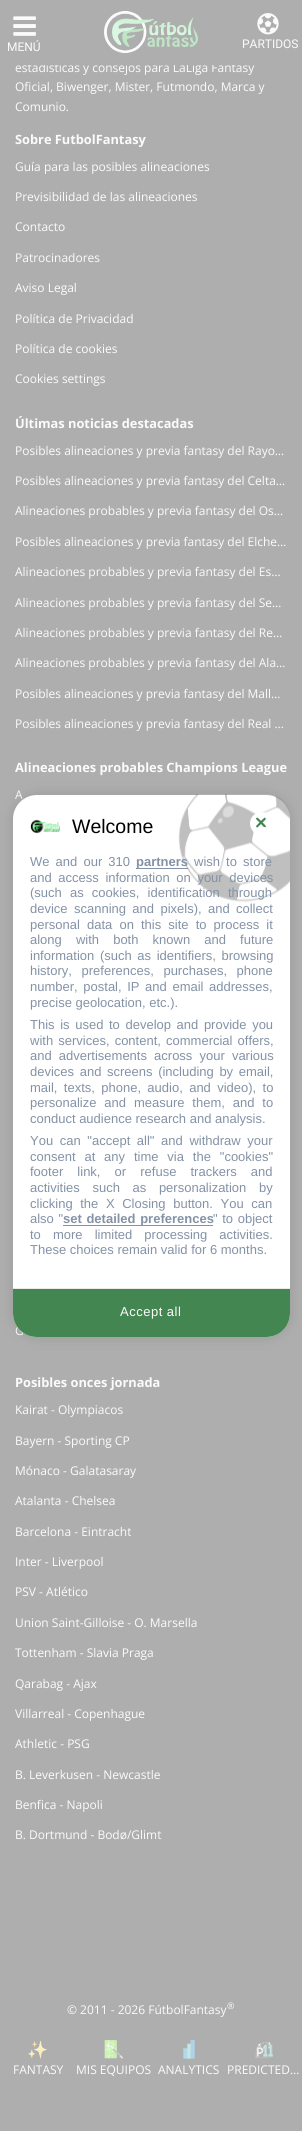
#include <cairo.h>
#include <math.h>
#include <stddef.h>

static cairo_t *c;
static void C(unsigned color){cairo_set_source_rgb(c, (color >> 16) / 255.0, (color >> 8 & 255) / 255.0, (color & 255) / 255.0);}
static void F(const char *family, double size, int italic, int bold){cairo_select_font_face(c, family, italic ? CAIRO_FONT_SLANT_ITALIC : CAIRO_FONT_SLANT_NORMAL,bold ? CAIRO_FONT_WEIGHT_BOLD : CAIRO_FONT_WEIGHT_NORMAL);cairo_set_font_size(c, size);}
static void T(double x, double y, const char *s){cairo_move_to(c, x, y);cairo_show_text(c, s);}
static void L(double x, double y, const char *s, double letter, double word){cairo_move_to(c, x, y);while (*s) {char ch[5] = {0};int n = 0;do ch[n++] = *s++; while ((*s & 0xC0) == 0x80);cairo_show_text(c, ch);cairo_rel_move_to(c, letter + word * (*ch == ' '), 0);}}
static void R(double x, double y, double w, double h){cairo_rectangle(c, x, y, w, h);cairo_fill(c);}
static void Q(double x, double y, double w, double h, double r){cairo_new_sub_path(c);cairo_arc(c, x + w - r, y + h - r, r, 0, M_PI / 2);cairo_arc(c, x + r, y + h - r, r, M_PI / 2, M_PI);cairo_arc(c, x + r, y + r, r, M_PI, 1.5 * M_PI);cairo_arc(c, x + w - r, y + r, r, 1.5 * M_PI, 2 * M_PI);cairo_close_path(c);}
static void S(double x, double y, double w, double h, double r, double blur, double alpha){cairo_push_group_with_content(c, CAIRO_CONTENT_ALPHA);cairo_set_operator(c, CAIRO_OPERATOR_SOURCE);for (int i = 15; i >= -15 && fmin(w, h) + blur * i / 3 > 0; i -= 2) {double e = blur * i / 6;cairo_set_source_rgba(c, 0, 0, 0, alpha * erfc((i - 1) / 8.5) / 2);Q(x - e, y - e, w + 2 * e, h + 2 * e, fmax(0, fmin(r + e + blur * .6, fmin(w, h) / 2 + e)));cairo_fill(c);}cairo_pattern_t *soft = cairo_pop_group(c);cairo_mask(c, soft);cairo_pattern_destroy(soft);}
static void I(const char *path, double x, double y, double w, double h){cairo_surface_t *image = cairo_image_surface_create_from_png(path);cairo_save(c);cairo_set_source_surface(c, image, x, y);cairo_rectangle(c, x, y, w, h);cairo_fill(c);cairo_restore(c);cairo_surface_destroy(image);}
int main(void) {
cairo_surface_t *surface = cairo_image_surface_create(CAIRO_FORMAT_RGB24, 302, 2131);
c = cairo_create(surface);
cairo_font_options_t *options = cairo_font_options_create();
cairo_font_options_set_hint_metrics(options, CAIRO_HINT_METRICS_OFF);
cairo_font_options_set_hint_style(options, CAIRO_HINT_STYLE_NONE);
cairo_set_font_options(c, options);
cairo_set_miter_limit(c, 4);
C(0xaeaeae);
cairo_paint(c);
S(0,3,302,65,0,2.5,.6);
F("Open Sans",12,0,0);
C(0xfbfbfb);
T(15,72,"estadísticas y consejos para LaLiga Fantasy");
C(0xaeaeae);
R(28,62,206,3);
I("1.png",104,11,94,42);
I("2.png",257,13,22,22);
F("Roboto",12,0,0);
C(0xfbfbfb);
T(242,48,"PARTIDOS");
I("3.png",13,16,23,20);
T(7,51,"MENÚ");
I("4.png",28,2040,19,19);
F("Open Sans",12,0,0);
T(13,2074,"FANTASY");
I("5.png",104,2040,19,19);
T(76,2074,"MIS EQUIPOS");
I("6.png",183,2040,12,19);
T(158,2074,"ANALYTICS");
I("7.png",255,2041,19,18);
T(227,2074,"PREDICTED…");
T(15,91,"Oficial, Biwenger, Mister, Futmondo, Marca y");
T(15,111,"Comunio.");
F("Open Sans",12.8,0,1);
T(15,144,"Sobre FutbolFantasy");
F("Open Sans",12,0,0);
T(15,171,"Guía para las posibles alineaciones");
T(15,201,"Previsibilidad de las alineaciones");
T(15,231,"Contacto");
T(15,262,"Patrocinadores");
T(15,292,"Aviso Legal");
T(15,323,"Política de Privacidad");
T(15,353,"Política de cookies");
T(15,383,"Cookies settings");
F("Open Sans",12.8,0,1);
T(15,428,"Últimas noticias destacadas");
F("Open Sans",12,0,0);
T(15,455,"Posibles alineaciones y previa fantasy del Rayo…");
T(15,485,"Posibles alineaciones y previa fantasy del Celta…");
T(15,515,"Alineaciones probables y previa fantasy del Os…");
T(15,546,"Posibles alineaciones y previa fantasy del Elche…");
T(15,576,"Alineaciones probables y previa fantasy del Es…");
T(15,607,"Alineaciones probables y previa fantasy del Se…");
T(15,637,"Alineaciones probables y previa fantasy del Re…");
T(15,667,"Alineaciones probables y previa fantasy del Ala…");
T(15,698,"Posibles alineaciones y previa fantasy del Mall…");
T(15,728,"Posibles alineaciones y previa fantasy del Real …");
F("Open Sans",12.8,0,1);
T(15,772,"Alineaciones probables Champions League");
F("Open Sans",12,0,0);
T(15,799,"A");
T(15,1335,"G");
F("Open Sans",12.8,0,1);
T(15,1387,"Posibles onces jornada");
F("Open Sans",12,0,0);
T(15,1414,"Kairat - Olympiacos");
T(15,1445,"Bayern - Sporting CP");
T(15,1475,"Mónaco - Galatasaray");
T(15,1505,"Atalanta - Chelsea");
T(15,1536,"Barcelona - Eintracht");
T(15,1566,"Inter - Liverpool");
T(15,1596,"PSV - Atlético");
T(15,1627,"Union Saint-Gilloise - O. Marsella");
T(15,1657,"Tottenham - Slavia Praga");
T(15,1688,"Qarabag - Ajax");
T(15,1718,"Villarreal - Copenhague");
T(15,1748,"Athletic - PSG");
T(15,1779,"B. Leverkusen - Newcastle");
T(15,1809,"Benfica - Napoli");
T(15,1839,"B. Dortmund - Bodø/Glimt");
T(67,2014,"© 2011 - 2026 FútbolFantasy");
F("Open Sans",9,0,0);
T(227,2009,"®");
C(0x000000);
S(13,795,277,542,24,7.5,.12);
C(0xffffff);
Q(13,795,277,542,24);
cairo_fill(c);
I("8.png",178,794,112,108);
I("9.png",30,819,30,15);
F("Liberation Sans",19.5,0,0);
C(0x000000);
T(72,833,"Welcome");
C(0xffffff);
cairo_new_path(c);
cairo_arc(c,261.5,823.5,11.5,0,2 * M_PI);
cairo_fill(c);
C(0x41864f);
cairo_new_path(c);
cairo_move_to(c,258,818);
cairo_curve_to(c,259,819,266,825.5,266,826.5);
cairo_line_to(c,265.5,827);
cairo_curve_to(c,264,828,262,825,261.5,824.5);
cairo_line_to(c,256,819);
cairo_curve_to(c,256,818,257,817,258,818);
cairo_close_path(c);
cairo_fill(c);
cairo_new_path(c);
cairo_move_to(c,256.5,825.5);
cairo_curve_to(c,257.5,824.5,264,817.5,265,817.5);
cairo_line_to(c,265.5,818);
cairo_curve_to(c,266.5,819.5,263.5,821.5,263,822);
cairo_line_to(c,257.5,827.5);
cairo_curve_to(c,256.5,827.5,255.5,826.5,256.5,825.5);
cairo_close_path(c);
cairo_fill(c);
F("Liberation Sans",13,0,0);
C(0x8492a6);
L(30,866,"We and our 310",0,2.5);
R(136,868,52,1);
F("Liberation Sans",13,0,1);
T(136,866,"partners");
F("Liberation Sans",13,0,0);
L(194,866,"wish to store",0,2.5);
L(30,882,"and access information on your devices",0,3);
L(30,897,"(such as cookies, identification through",0,4.5);
L(30,913,"device scanning and pixels), and collect",0,2.75);
L(30,929,"personal data on this site to process it",0,3.5);
L(30,944,"along with both known and future",0,10.5);
L(30,960,"information (such as identifiers, browsing",0,2);
L(30,975,"history, preferences, purchases, phone",0,6);
L(30,991,"number, postal, IP and email addresses,",0,2);
T(30,1007,"precise geolocation, etc.).");
L(30,1029,"This is used to develop and provide you",0,2);
L(30,1045,"with services, content, commercial offers,",0,1.5);
L(30,1060,"and advertisements across your various",0,3.5);
L(30,1076,"devices and screens (including by email,",0,2);
L(30,1092,"mail, texts, phone, audio, and video), to",0,2.75);
L(30,1107,"personalize and measure them, and to",0,4.25);
T(30,1123,"conduct audience research and analysis.");
L(30,1145,"You can \"accept all\" and withdraw your",0,3);
L(30,1161,"consent at any time via the \"cookies\"",0,5.25);
L(30,1176,"footer link, or refuse trackers and",0,10.5);
L(30,1192,"activities such as personalization by",0,9);
L(30,1208,"clicking the X Closing button. You can",0,4);
L(30,1223,"also \"",0,1);
R(63,1225,150,1);
F("Liberation Sans",13,0,1);
L(63,1223,"set detailed preferences",0,1);
F("Liberation Sans",13,0,0);
L(213,1223,"\" to object",0,1);
L(30,1239,"to more limited processing activities.",0,8.5);
T(30,1254,"These choices remain valid for 6 months.");
C(0x448651);
cairo_new_path(c);
cairo_move_to(c,13,1288);
cairo_line_to(c,290,1288);
cairo_line_to(c,290,1313);
cairo_curve_to(c,290,1326.5,279.5,1337,266,1337);
cairo_line_to(c,37,1337);
cairo_curve_to(c,23.5,1337,13,1326.5,13,1313);
cairo_close_path(c);
cairo_fill(c);
C(0xeaeaea);
R(13,1288,277,1);
C(0xfbfbfb);
L(120,1316,"Accept all",.5,0);
cairo_surface_write_to_png(surface, "o.png");
cairo_font_options_destroy(options);
cairo_destroy(c);
cairo_surface_destroy(surface);
return 0;
}
